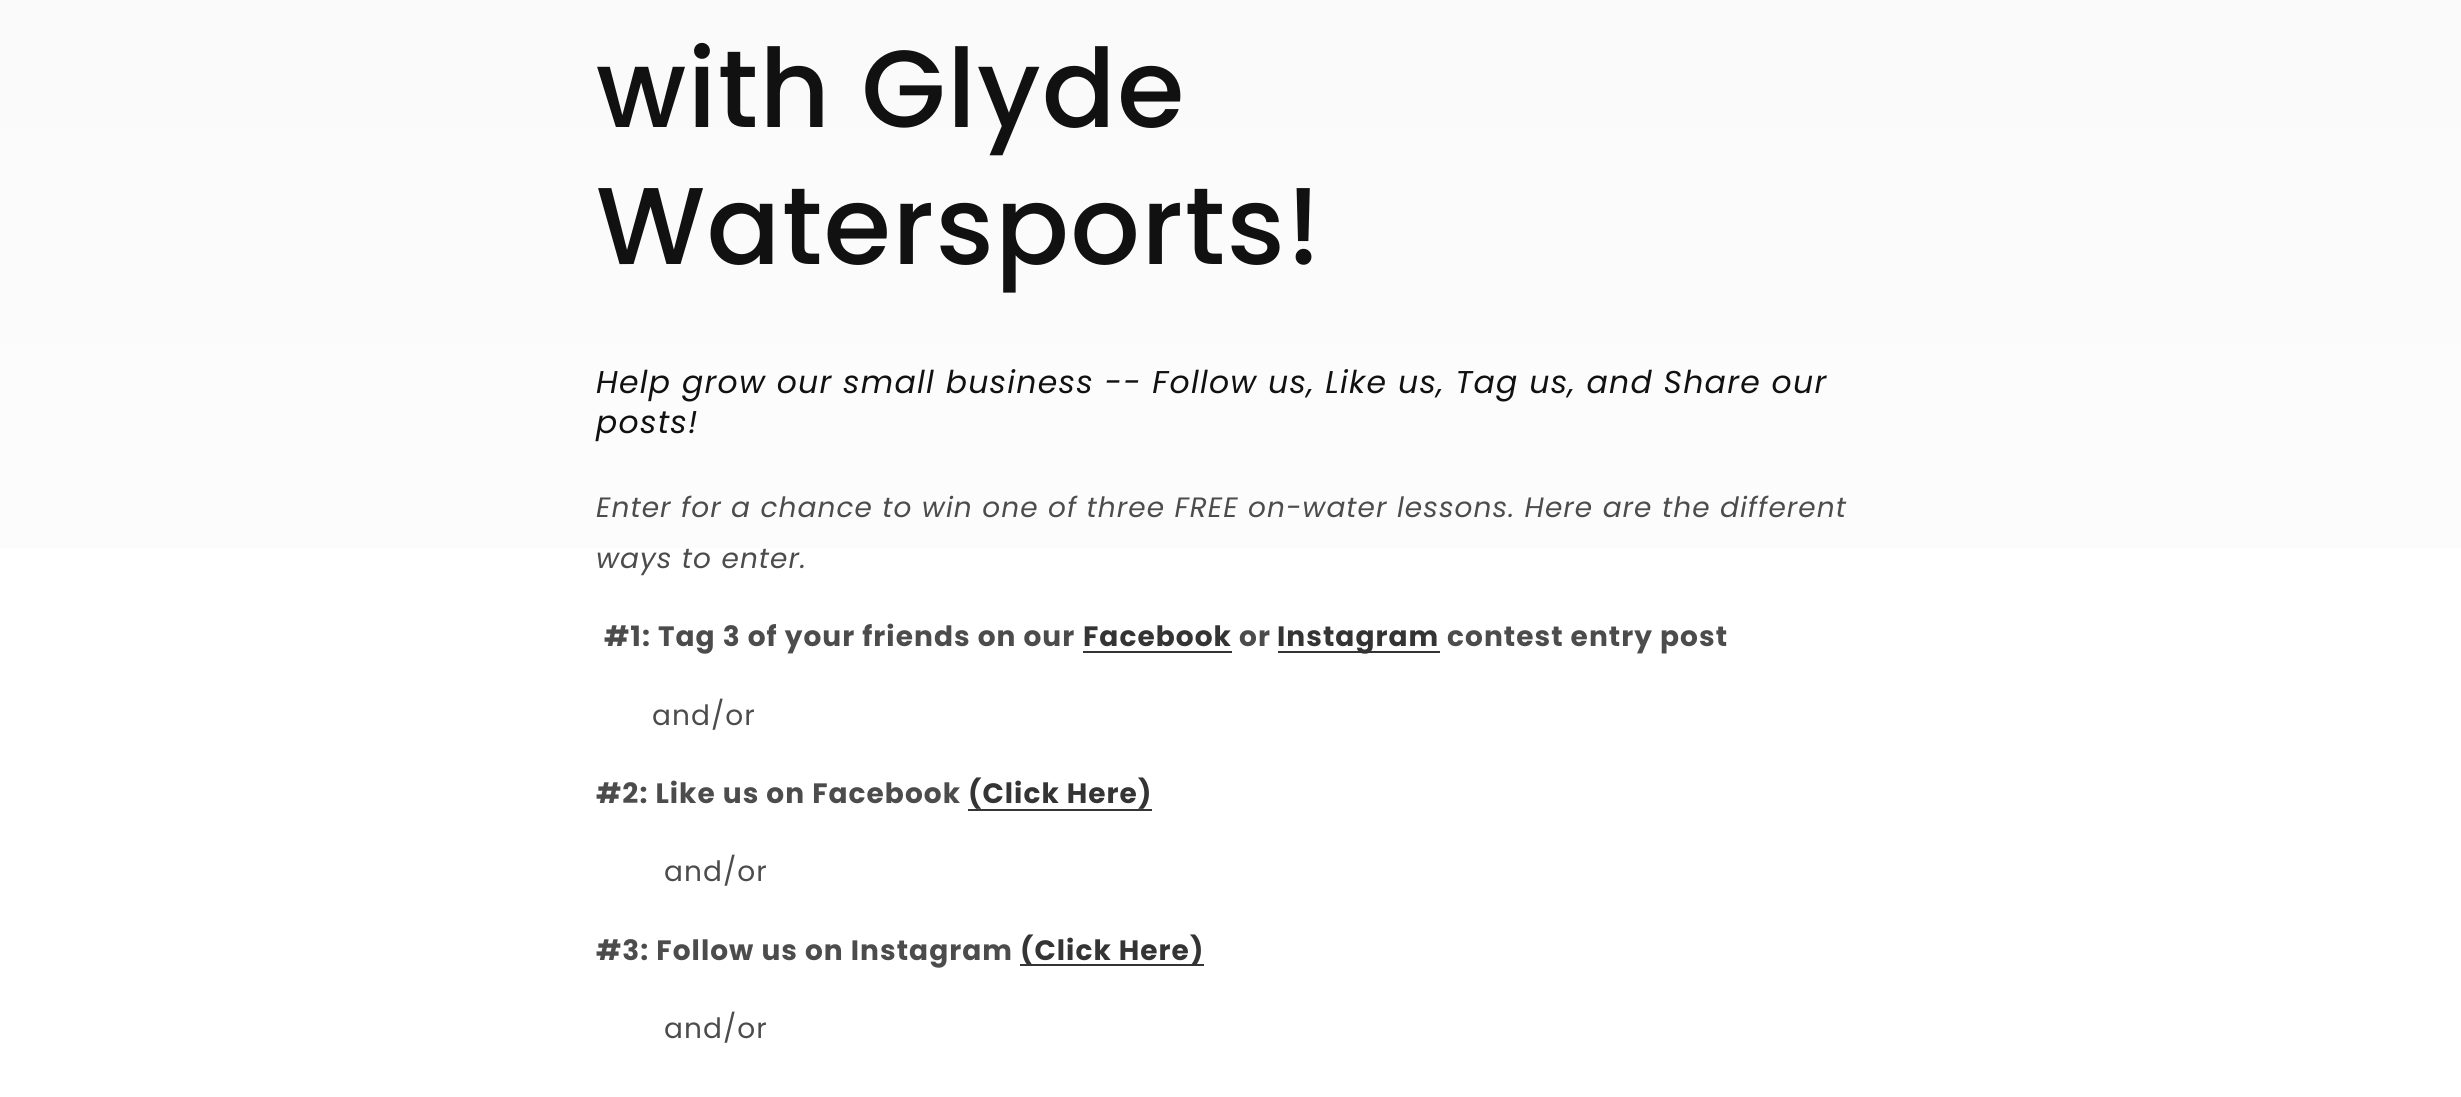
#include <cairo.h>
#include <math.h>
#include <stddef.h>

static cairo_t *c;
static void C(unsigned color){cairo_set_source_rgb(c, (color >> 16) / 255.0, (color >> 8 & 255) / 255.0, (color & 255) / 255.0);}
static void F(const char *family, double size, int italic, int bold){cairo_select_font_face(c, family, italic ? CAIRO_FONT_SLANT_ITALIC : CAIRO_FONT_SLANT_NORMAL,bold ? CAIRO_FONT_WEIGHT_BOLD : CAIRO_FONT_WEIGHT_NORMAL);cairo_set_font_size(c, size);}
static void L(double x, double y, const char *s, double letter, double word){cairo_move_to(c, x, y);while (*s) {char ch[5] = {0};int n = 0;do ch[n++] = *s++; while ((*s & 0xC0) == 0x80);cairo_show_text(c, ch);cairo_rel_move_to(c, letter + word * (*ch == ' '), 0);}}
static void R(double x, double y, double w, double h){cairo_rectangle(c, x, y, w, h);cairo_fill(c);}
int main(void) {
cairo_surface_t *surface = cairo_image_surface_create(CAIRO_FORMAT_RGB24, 2461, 1097);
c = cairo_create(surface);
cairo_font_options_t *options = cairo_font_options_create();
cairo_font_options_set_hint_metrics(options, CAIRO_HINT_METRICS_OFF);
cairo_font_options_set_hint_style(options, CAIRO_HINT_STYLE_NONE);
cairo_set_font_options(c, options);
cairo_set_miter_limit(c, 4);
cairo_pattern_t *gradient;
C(0xffffff);
cairo_paint(c);
gradient = cairo_pattern_create_linear(1231,0,1231,1097);
cairo_pattern_add_color_stop_rgba(gradient,0,0.98,0.98,0.98,1);
cairo_pattern_add_color_stop_rgba(gradient,1,1,1,1,1);
cairo_set_source(c,gradient);
cairo_pattern_destroy(gradient);
R(0,0,2461,548);
F("Poppins Medium",109.25,0,0);
C(0x111111);
L(596,127,"with Glyde",1.25,0);
L(596,264,"Watersports!",1.25,0);
F("Poppins",31.5,1,0);
L(596,393,"Help grow our small business -- Follow us, Like us, Tag us, and Share our",1.25,0);
L(596,433,"posts!",1.25,0);
F("Poppins",28,1,0);
C(0x4c4c4c);
L(596,517,"Enter for a chance to win one of three FREE on-water lessons. Here are the different",1.05,0);
L(596,568,"ways to enter.",1.05,0);
F("Poppins",28,0,1);
L(604,646,"#1: Tag 3 of your friends on our",1.05,0);
C(0x343434);
L(1083,646,"Facebook",1.05,0);
R(1083,651,149,2);
C(0x4c4c4c);
L(1239,646,"or",1.05,0);
C(0x343434);
R(1278,651,162,2);
L(1277,646,"Instagram",1.05,0);
C(0x4c4c4c);
L(1447,646,"contest entry post",1.05,0);
F("Poppins",28,0,0);
L(652,725,"and/or",1.05,0);
F("Poppins",28,0,1);
L(596,803,"#2: Like us on Facebook",1.05,0);
C(0x343434);
L(968,803,"(Click Here)",1.05,0);
C(0x353535);
R(968,809,184,2);
F("Poppins",28,0,0);
C(0x4c4c4c);
L(664,881,"and/or",1.05,0);
F("Poppins",28,0,1);
L(596,960,"#3: Follow us on Instagram",1.05,0);
C(0x353535);
R(1020,964,184,2);
C(0x343434);
L(1020,960,"(Click Here)",1.05,0);
F("Poppins",28,0,0);
C(0x4c4c4c);
L(664,1038,"and/or",1.05,0);
cairo_surface_write_to_png(surface, "o.png");
cairo_font_options_destroy(options);
cairo_destroy(c);
cairo_surface_destroy(surface);
return 0;
}
